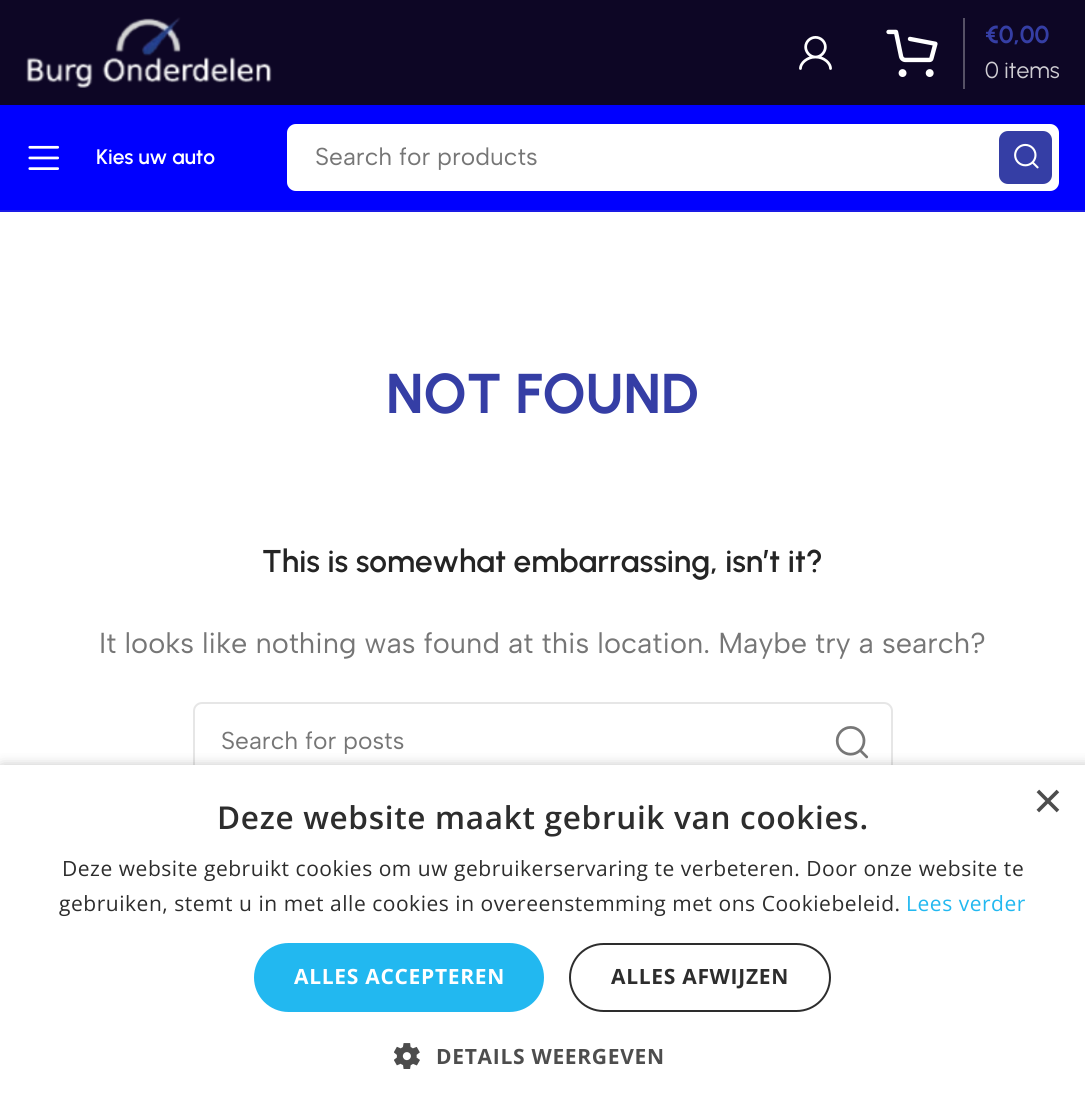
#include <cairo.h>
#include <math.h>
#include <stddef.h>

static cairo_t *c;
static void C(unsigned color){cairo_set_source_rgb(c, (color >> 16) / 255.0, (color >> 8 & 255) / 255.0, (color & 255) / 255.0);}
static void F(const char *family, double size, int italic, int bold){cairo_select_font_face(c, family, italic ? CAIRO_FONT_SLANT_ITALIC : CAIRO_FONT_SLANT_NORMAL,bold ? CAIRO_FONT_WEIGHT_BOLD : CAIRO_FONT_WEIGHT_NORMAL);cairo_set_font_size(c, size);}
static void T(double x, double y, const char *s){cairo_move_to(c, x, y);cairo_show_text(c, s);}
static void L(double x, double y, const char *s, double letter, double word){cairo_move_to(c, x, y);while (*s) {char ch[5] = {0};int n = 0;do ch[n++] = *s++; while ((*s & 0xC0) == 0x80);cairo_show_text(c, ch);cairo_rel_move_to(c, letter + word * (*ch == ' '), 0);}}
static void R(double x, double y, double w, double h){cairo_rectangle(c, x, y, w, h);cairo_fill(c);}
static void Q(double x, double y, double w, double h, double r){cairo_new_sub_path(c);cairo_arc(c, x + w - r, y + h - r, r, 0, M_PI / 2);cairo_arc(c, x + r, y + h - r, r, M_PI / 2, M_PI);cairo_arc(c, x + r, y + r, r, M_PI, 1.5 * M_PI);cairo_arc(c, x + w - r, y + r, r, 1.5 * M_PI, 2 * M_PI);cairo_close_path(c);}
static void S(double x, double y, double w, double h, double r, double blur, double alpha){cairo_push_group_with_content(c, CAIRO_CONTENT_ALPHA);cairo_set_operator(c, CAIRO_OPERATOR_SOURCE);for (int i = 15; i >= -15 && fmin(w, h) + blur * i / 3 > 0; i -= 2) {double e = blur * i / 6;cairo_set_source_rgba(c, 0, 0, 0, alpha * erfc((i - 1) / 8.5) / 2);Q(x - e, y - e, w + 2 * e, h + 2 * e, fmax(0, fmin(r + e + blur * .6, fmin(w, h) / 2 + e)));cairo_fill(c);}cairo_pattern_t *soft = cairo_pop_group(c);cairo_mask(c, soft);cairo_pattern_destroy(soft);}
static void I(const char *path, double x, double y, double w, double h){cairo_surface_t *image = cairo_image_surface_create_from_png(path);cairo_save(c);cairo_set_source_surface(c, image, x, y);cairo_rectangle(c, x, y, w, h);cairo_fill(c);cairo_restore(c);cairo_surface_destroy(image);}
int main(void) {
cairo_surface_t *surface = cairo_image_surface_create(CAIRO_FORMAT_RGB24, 1085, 1114);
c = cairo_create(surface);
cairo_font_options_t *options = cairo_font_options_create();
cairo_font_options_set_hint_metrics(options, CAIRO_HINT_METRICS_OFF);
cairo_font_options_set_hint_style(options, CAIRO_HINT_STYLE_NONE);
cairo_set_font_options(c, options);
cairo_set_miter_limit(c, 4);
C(0xffffff);
cairo_paint(c);
C(0x0d0625);
R(0,0,1085,105);
I("1.png",26,17,246,71);
I("2.png",799,36,33,34);
I("3.png",886,29,52,48);
C(0x565166);
R(963,18,2,71);
F("Urbanist",24.5,0,1);
C(0x353ea5);
T(985,43,"€0,00");
F("Urbanist",23,0,0);
C(0xcfcdd3);
T(985,78,"0 items");
C(0x0000ff);
R(0,105,1085,105);
C(0x1a1ae6);
R(0,210,1085,2);
I("4.png",28,145,31,25);
F("Urbanist SemiBold",21,0,0);
C(0xffffff);
T(96,164,"Kies uw auto");
Q(287,124,772,67,9);
cairo_fill(c);
Q(288,125,770,65,8);
cairo_set_source_rgba(c,1,1,1,0.2);
cairo_stroke(c);
F("Albert Sans",24.5,0,0);
C(0x767676);
T(315,165,"Search for products");
C(0x353ea5);
Q(999,131,53,53,9);
cairo_fill(c);
I("5.png",1014,143,25,26);
F("Urbanist",56,0,1);
T(386,413,"NOT FOUND");
F("Urbanist SemiBold",31.5,0,0);
C(0x242424);
T(262,572,"This is somewhat embarrassing, isn’t it?");
F("Albert Sans",28.9,0,0);
C(0x767676);
T(99,653,"It looks like nothing was found at this location. Maybe try a search?");
Q(194,703,698,78,8);
C(0xe6e6e6);
cairo_stroke(c);
F("Albert Sans",24.5,0,0);
C(0x767676);
T(221,749,"Search for posts");
I("6.png",835,726,34,33);
C(0x000000);
S(2,768,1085,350,0,7,.35);
C(0xffffff);
R(0,765,1085,349);
F("Liberation Sans",51,0,0);
C(0x4d4d4d);
T(1033,818,"×");
F("Open Sans SemiBold",31.5,0,0);
C(0x2d2d2d);
L(217,829,"Deze website maakt gebruik van cookies.",.7,0);
F("Open Sans",21,0,0);
L(62,876,"Deze website gebruikt cookies om uw gebruikerservaring te verbeteren. Door onze website te",.53,0);
L(59,911,"gebruiken, stemt u in met alle cookies in overeenstemming met ons Cookiebeleid.",.53,0);
C(0x22b8f0);
L(906,911,"Lees verder",.53,0);
Q(254,943,290,69,34.5);
cairo_fill(c);
F("Open Sans",21,0,1);
C(0xffffff);
L(294,984,"ALLES ACCEPTEREN",.7,0);
Q(570,944,260,67,33.5);
C(0x2d2d2d);
cairo_stroke(c);
L(611,984,"ALLES AFWIJZEN",.7,0);
I("7.png",394,1043,26,26);
C(0x4d4d4d);
L(436,1064,"DETAILS WEERGEVEN",.7,0);
cairo_surface_write_to_png(surface, "o.png");
cairo_font_options_destroy(options);
cairo_destroy(c);
cairo_surface_destroy(surface);
return 0;
}
